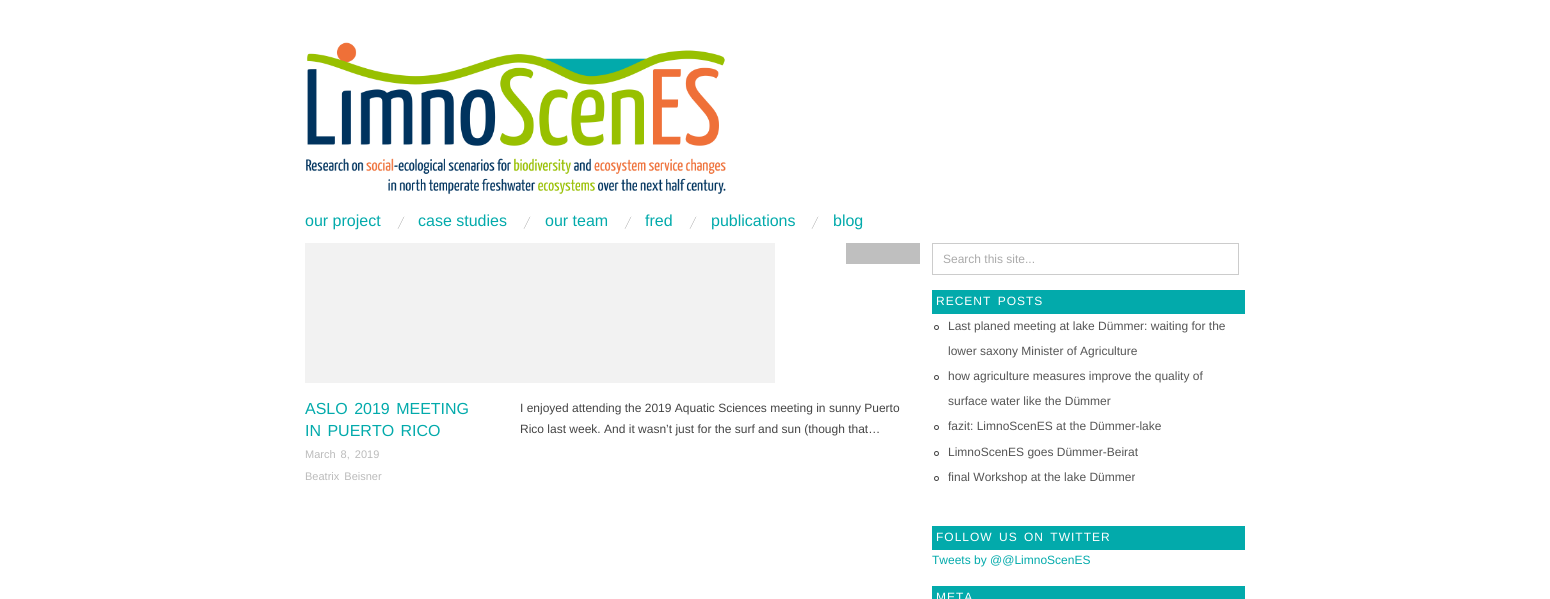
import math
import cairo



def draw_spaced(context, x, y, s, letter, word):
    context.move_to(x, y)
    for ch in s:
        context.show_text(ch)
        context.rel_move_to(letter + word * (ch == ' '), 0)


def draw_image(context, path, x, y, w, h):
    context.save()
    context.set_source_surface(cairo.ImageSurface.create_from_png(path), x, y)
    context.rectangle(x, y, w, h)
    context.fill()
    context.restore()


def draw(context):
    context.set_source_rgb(1, 1, 1)
    context.paint()
    draw_image(context, "images/1.png", 306, 42, 420, 153)
    draw_image(context, "images/2.png", 397, 216, 8, 13)
    draw_image(context, "images/2.png", 523, 216, 8, 13)
    draw_image(context, "images/2.png", 624, 216, 8, 13)
    draw_image(context, "images/2.png", 689, 216, 8, 13)
    draw_image(context, "images/2.png", 811, 216, 8, 13)
    context.set_source_rgb(242 / 255, 242 / 255, 242 / 255)
    context.rectangle(305, 243, 470, 140)
    context.fill()
    context.set_source_rgb(191 / 255, 191 / 255, 191 / 255)
    context.rectangle(846, 243, 74, 21)
    context.fill()
    context.rectangle(932.5, 243.5, 306, 31)
    context.set_source_rgb(204 / 255, 204 / 255, 204 / 255)
    context.set_line_width(1)
    context.stroke()
    context.set_source_rgb(2 / 255, 170 / 255, 171 / 255)
    context.rectangle(932, 290, 313, 24)
    context.fill()
    context.arc(936.5, 327.5, 2, 0, 2 * math.pi)
    context.set_source_rgb(68 / 255, 68 / 255, 68 / 255)
    context.stroke()
    context.arc(936.5, 377.5, 2, 0, 2 * math.pi)
    context.stroke()
    context.arc(936.5, 427.5, 2, 0, 2 * math.pi)
    context.stroke()
    context.arc(936.5, 453.5, 2, 0, 2 * math.pi)
    context.stroke()
    context.arc(936.5, 478.5, 2, 0, 2 * math.pi)
    context.stroke()
    context.set_source_rgb(2 / 255, 170 / 255, 171 / 255)
    context.rectangle(932, 526, 313, 24)
    context.fill()
    context.rectangle(932, 586, 313, 13)
    context.fill()
    context.select_font_face("Liberation Sans")
    context.set_font_size(16)
    context.move_to(305, 226)
    context.show_text("our project")
    context.move_to(418, 226)
    context.show_text("case studies")
    context.move_to(545, 226)
    context.show_text("our team")
    context.move_to(645, 226)
    context.show_text("fred")
    context.move_to(711, 226)
    context.show_text("publications")
    context.move_to(833, 226)
    context.show_text("blog")
    draw_spaced(context, 305, 414, "ASLO 2019 MEETING", 0, 2)
    draw_spaced(context, 305, 436, "IN PUERTO RICO", 0, 2)
    context.set_font_size(11)
    context.set_source_rgb(187 / 255, 187 / 255, 187 / 255)
    draw_spaced(context, 305, 458, "March 8, 2019", 0, 2)
    draw_spaced(context, 305, 480, "Beatrix Beisner", 0, 2)
    context.set_font_size(12)
    context.set_source_rgb(68 / 255, 68 / 255, 68 / 255)
    context.move_to(520, 412)
    context.show_text("I enjoyed attending the 2019 Aquatic Sciences meeting in sunny Puerto")
    context.move_to(520, 433)
    context.show_text("Rico last week. And it wasn’t just for the surf and sun (though that…")
    context.set_source_rgb(170 / 255, 170 / 255, 170 / 255)
    context.move_to(943, 263)
    context.show_text("Search this site...")
    context.set_source_rgb(1, 1, 1)
    draw_spaced(context, 936, 305, "RECENT POSTS", 1, 2)
    context.set_source_rgb(85 / 255, 85 / 255, 85 / 255)
    context.move_to(948, 330)
    context.show_text("Last planed meeting at lake Dümmer: waiting for the")
    context.move_to(948, 355)
    context.show_text("lower saxony Minister of Agriculture")
    context.move_to(948, 380)
    context.show_text("how agriculture measures improve the quality of")
    context.move_to(948, 405)
    context.show_text("surface water like the Dümmer")
    context.move_to(948, 430)
    context.show_text("fazit: LimnoScenES at the Dümmer-lake")
    context.move_to(948, 456)
    context.show_text("LimnoScenES goes Dümmer-Beirat")
    context.move_to(948, 481)
    context.show_text("final Workshop at the lake Dümmer")
    context.set_source_rgb(1, 1, 1)
    draw_spaced(context, 936, 541, "FOLLOW US ON TWITTER", 1, 2)
    context.set_source_rgb(2 / 255, 170 / 255, 171 / 255)
    context.move_to(932, 564)
    context.show_text("Tweets by @@LimnoScenES")
    context.set_source_rgb(1, 1, 1)
    draw_spaced(context, 936, 601, "META", 1, 0)


surface = cairo.ImageSurface(cairo.Format.RGB24, 1550, 599)
context = cairo.Context(surface)
options = cairo.FontOptions()
options.set_hint_metrics(cairo.HintMetrics.OFF)
options.set_hint_style(cairo.HintStyle.NONE)
context.set_font_options(options)
context.set_miter_limit(4)
draw(context)
surface.write_to_png("out.png")
